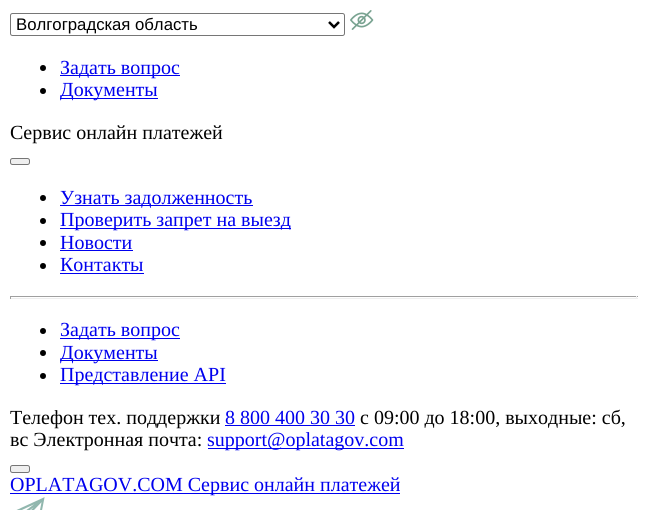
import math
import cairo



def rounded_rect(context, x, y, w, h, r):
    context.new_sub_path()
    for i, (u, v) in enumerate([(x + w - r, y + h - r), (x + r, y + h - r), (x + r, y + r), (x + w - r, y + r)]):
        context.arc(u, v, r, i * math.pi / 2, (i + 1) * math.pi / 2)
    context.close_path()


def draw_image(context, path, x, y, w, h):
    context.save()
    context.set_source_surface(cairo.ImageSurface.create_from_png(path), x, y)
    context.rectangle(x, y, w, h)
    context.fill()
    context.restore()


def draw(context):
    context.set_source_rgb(1, 1, 1)
    context.paint()
    rounded_rect(context, 10.5, 13.5, 334, 22, 2)
    context.set_source_rgb(118 / 255, 118 / 255, 118 / 255)
    context.set_line_width(1)
    context.stroke()
    context.new_path()
    context.move_to(329, 22)
    context.line_to(334, 27)
    context.line_to(339, 22)
    context.set_source_rgb(0, 0, 0)
    context.set_line_width(2.5)
    context.stroke()
    draw_image(context, "images/1.png", 350, 10, 24, 20)
    context.arc(43, 68, 3, 0, 2 * math.pi)
    context.fill()
    context.set_source_rgb(0, 0, 238 / 255)
    context.rectangle(60, 75, 120, 1)
    context.fill()
    context.set_source_rgb(0, 0, 0)
    context.arc(43, 91, 3, 0, 2 * math.pi)
    context.fill()
    context.set_source_rgb(0, 0, 238 / 255)
    context.rectangle(60, 98, 98, 1)
    context.fill()
    context.set_source_rgb(239 / 255, 239 / 255, 239 / 255)
    rounded_rect(context, 10.5, 158.5, 19, 6, 2)
    context.fill_preserve()
    context.set_source_rgb(118 / 255, 118 / 255, 118 / 255)
    context.set_line_width(1)
    context.stroke()
    context.set_source_rgb(0, 0, 0)
    context.arc(43, 198, 3, 0, 2 * math.pi)
    context.fill()
    context.set_source_rgb(0, 0, 238 / 255)
    context.rectangle(60, 205, 193, 1)
    context.fill()
    context.set_source_rgb(0, 0, 0)
    context.arc(43, 221, 3, 0, 2 * math.pi)
    context.fill()
    context.set_source_rgb(0, 0, 238 / 255)
    context.rectangle(60, 228, 231, 1)
    context.fill()
    context.set_source_rgb(0, 0, 0)
    context.arc(43, 243, 3, 0, 2 * math.pi)
    context.fill()
    context.set_source_rgb(0, 0, 238 / 255)
    context.rectangle(60, 250, 73, 1)
    context.fill()
    context.set_source_rgb(0, 0, 0)
    context.arc(43, 266, 3, 0, 2 * math.pi)
    context.fill()
    context.set_source_rgb(0, 0, 238 / 255)
    context.rectangle(60, 273, 84, 1)
    context.fill()
    context.set_source_rgb(159 / 255, 159 / 255, 159 / 255)
    context.rectangle(10, 296, 628, 1)
    context.fill()
    context.set_source_rgb(238 / 255, 238 / 255, 238 / 255)
    context.rectangle(636, 296, 1, 3)
    context.fill()
    context.rectangle(10, 298, 628, 1)
    context.fill()
    context.set_source_rgb(159 / 255, 159 / 255, 159 / 255)
    context.rectangle(10, 296, 1, 3)
    context.fill()
    context.set_source_rgb(0, 0, 0)
    context.arc(43, 331, 3, 0, 2 * math.pi)
    context.fill()
    context.set_source_rgb(0, 0, 238 / 255)
    context.rectangle(60, 338, 120, 1)
    context.fill()
    context.set_source_rgb(0, 0, 0)
    context.arc(43, 353, 3, 0, 2 * math.pi)
    context.fill()
    context.set_source_rgb(0, 0, 238 / 255)
    context.rectangle(60, 360, 98, 1)
    context.fill()
    context.set_source_rgb(0, 0, 0)
    context.arc(43, 376, 3, 0, 2 * math.pi)
    context.fill()
    context.set_source_rgb(0, 0, 238 / 255)
    context.rectangle(60, 383, 166, 1)
    context.fill()
    context.rectangle(225, 425, 130, 1)
    context.fill()
    context.rectangle(208, 448, 196, 1)
    context.fill()
    context.set_source_rgb(239 / 255, 239 / 255, 239 / 255)
    rounded_rect(context, 10.5, 465.5, 19, 7, 2)
    context.fill_preserve()
    context.set_source_rgb(118 / 255, 118 / 255, 118 / 255)
    context.stroke()
    context.set_source_rgb(0, 0, 238 / 255)
    context.rectangle(10, 493, 390, 1)
    context.fill()
    draw_image(context, "images/2.png", 16, 497, 29, 13)
    context.select_font_face("Liberation Sans")
    context.set_font_size(16.75)
    context.set_source_rgb(0, 0, 0)
    context.move_to(16, 30)
    context.show_text("Волгоградская область")
    context.select_font_face("Liberation Serif")
    context.set_font_size(20)
    context.set_source_rgb(0, 0, 238 / 255)
    context.move_to(60, 74)
    context.show_text("Задать вопрос")
    context.move_to(60, 96)
    context.show_text("Документы")
    context.set_source_rgb(0, 0, 0)
    context.move_to(10, 139)
    context.show_text("Сервис онлайн платежей")
    context.set_source_rgb(0, 0, 238 / 255)
    context.move_to(60, 204)
    context.show_text("Узнать задолженность")
    context.move_to(60, 226)
    context.show_text("Проверить запрет на выезд")
    context.move_to(60, 249)
    context.show_text("Новости")
    context.move_to(60, 271)
    context.show_text("Контакты")
    context.move_to(60, 336)
    context.show_text("Задать вопрос")
    context.move_to(60, 359)
    context.show_text("Документы")
    context.move_to(60, 381)
    context.show_text("Представление API")
    context.set_source_rgb(0, 0, 0)
    context.move_to(10, 424)
    context.show_text("Телефон тех. поддержки")
    context.set_source_rgb(0, 0, 238 / 255)
    context.move_to(225, 424)
    context.show_text("8 800 400 30 30")
    context.set_source_rgb(0, 0, 0)
    context.move_to(360, 424)
    context.show_text("с 09:00 до 18:00, выходные: сб,")
    context.move_to(10, 446)
    context.show_text("вс Электронная почта:")
    context.set_source_rgb(0, 0, 238 / 255)
    context.move_to(207, 446)
    context.show_text("support@oplatagov.com")
    context.move_to(10, 491)
    context.show_text("OPLATAGOV.COM Сервис онлайн платежей")


surface = cairo.ImageSurface(cairo.Format.RGB24, 647, 510)
context = cairo.Context(surface)
options = cairo.FontOptions()
options.set_hint_metrics(cairo.HintMetrics.OFF)
options.set_hint_style(cairo.HintStyle.NONE)
context.set_font_options(options)
context.set_miter_limit(4)
draw(context)
surface.write_to_png("out.png")
